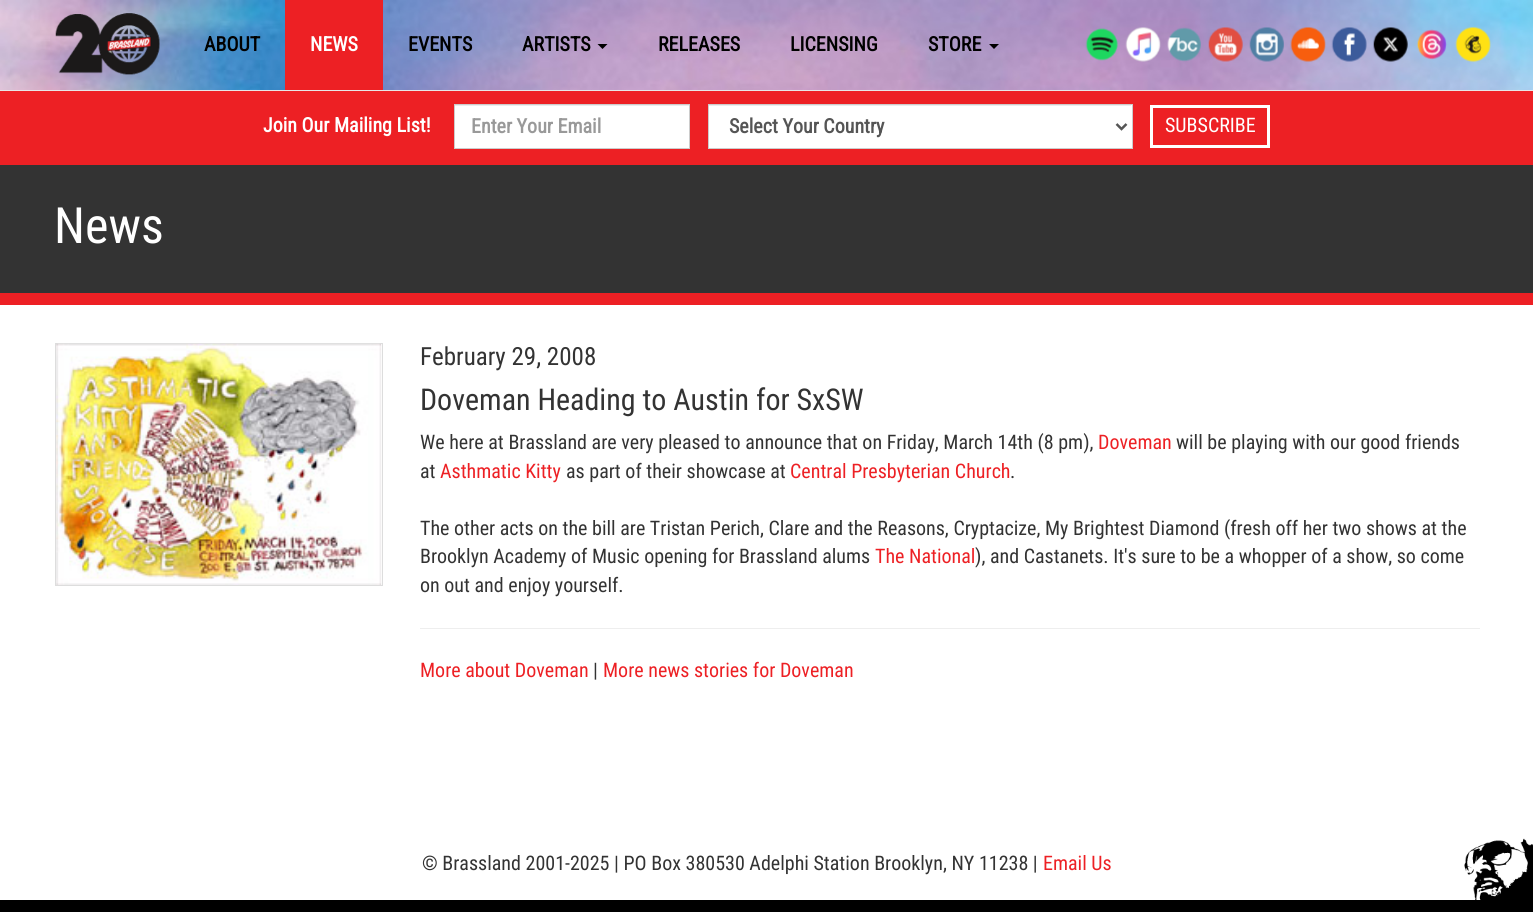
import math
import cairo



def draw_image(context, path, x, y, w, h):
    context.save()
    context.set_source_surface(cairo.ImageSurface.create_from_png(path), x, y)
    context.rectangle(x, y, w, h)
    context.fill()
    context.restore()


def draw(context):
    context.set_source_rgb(1, 1, 1)
    context.paint()
    draw_image(context, "images/1.png", 0, 0, 1533, 90)
    context.set_source_rgb(231 / 255, 231 / 255, 231 / 255)
    context.rectangle(0, 90, 1533, 1)
    context.fill()
    draw_image(context, "images/2.png", 55, 13, 105, 62)
    context.set_source_rgb(237 / 255, 32 / 255, 36 / 255)
    context.rectangle(285, 0, 98, 90)
    context.fill()
    context.set_source_rgb(0, 0, 0)
    context.new_path()
    context.move_to(597.5, 44)
    context.line_to(607.5, 44)
    context.line_to(602.5, 49)
    context.close_path()
    context.fill()
    context.new_path()
    context.move_to(989, 44)
    context.line_to(999, 44)
    context.line_to(994, 49)
    context.close_path()
    context.fill()
    draw_image(context, "images/3.png", 1085, 28, 33, 33)
    draw_image(context, "images/4.png", 1125, 27, 36, 35)
    draw_image(context, "images/5.png", 1167, 27, 34, 35)
    draw_image(context, "images/6.png", 1208, 27, 35, 35)
    draw_image(context, "images/7.png", 1249, 27, 35, 35)
    draw_image(context, "images/8.png", 1290, 27, 36, 35)
    draw_image(context, "images/9.png", 1331, 27, 36, 35)
    draw_image(context, "images/10.png", 1373, 27, 35, 35)
    draw_image(context, "images/11.png", 1416, 29, 31, 31)
    draw_image(context, "images/12.png", 1455, 27, 36, 35)
    context.set_source_rgb(237 / 255, 32 / 255, 36 / 255)
    context.rectangle(0, 91, 1533, 74)
    context.fill()
    context.set_source_rgb(1, 1, 1)
    context.rectangle(455, 106, 234, 42)
    context.fill()
    context.set_source_rgb(236 / 255, 236 / 255, 236 / 255)
    context.rectangle(455, 105, 234, 1)
    context.fill()
    context.rectangle(454.5, 104.5, 235, 44)
    context.set_source_rgb(204 / 255, 204 / 255, 204 / 255)
    context.set_line_width(1)
    context.stroke()
    context.set_source_rgb(1, 1, 1)
    context.rectangle(709, 105, 423, 43)
    context.fill()
    context.set_source_rgb(236 / 255, 236 / 255, 236 / 255)
    context.rectangle(709, 105, 422, 1)
    context.fill()
    context.rectangle(708.5, 104.5, 424, 44)
    context.set_source_rgb(204 / 255, 204 / 255, 204 / 255)
    context.stroke()
    context.new_path()
    context.move_to(1116.5, 124)
    context.line_to(1121.5, 129)
    context.line_to(1126.5, 124)
    context.set_source_rgb(85 / 255, 85 / 255, 85 / 255)
    context.set_line_width(2.5)
    context.stroke()
    context.rectangle(1151.5, 106.5, 117, 40)
    context.set_source_rgb(1, 1, 1)
    context.set_line_width(3)
    context.stroke()
    context.set_source_rgb(51 / 255, 51 / 255, 51 / 255)
    context.rectangle(0, 165, 1533, 128)
    context.fill()
    context.set_source_rgb(237 / 255, 32 / 255, 36 / 255)
    context.rectangle(0, 293, 1533, 12)
    context.fill()
    context.rectangle(55.5, 343.5, 327, 242)
    context.set_source_rgb(221 / 255, 221 / 255, 221 / 255)
    context.set_line_width(1)
    context.stroke()
    draw_image(context, "images/13.png", 56, 343, 326, 242)
    context.set_source_rgb(238 / 255, 238 / 255, 238 / 255)
    context.rectangle(420, 628, 1060, 1)
    context.fill()
    draw_image(context, "images/14.png", 1464, 838, 69, 62)
    context.set_source_rgb(0, 0, 0)
    context.rectangle(0, 900, 1533, 12)
    context.fill()
    context.select_font_face("Roboto Condensed", cairo.FontSlant.NORMAL, cairo.FontWeight.BOLD)
    context.set_font_size(20)
    context.move_to(204, 51)
    context.show_text("ABOUT")
    context.set_source_rgb(1, 1, 1)
    context.move_to(310, 51)
    context.show_text("NEWS")
    context.set_source_rgb(0, 0, 0)
    context.move_to(408, 51)
    context.show_text("EVENTS")
    context.move_to(522, 51)
    context.show_text("ARTISTS")
    context.move_to(658, 51)
    context.show_text("RELEASES")
    context.move_to(790, 51)
    context.show_text("LICENSING")
    context.move_to(928, 51)
    context.show_text("STORE")
    context.set_source_rgb(1, 1, 1)
    context.move_to(263, 132)
    context.show_text("Join Our Mailing List!")
    context.set_source_rgb(153 / 255, 153 / 255, 153 / 255)
    context.move_to(471, 133)
    context.show_text("Enter Your Email")
    context.set_source_rgb(85 / 255, 85 / 255, 85 / 255)
    context.move_to(729, 133)
    context.show_text("Select Your Country")
    context.select_font_face("Roboto Condensed")
    context.set_source_rgb(1, 1, 1)
    context.move_to(1165, 132)
    context.show_text("SUBSCRIBE")
    context.set_font_size(50)
    context.move_to(54, 243)
    context.show_text("News")
    context.set_font_size(25)
    context.set_source_rgb(51 / 255, 51 / 255, 51 / 255)
    context.move_to(420, 365)
    context.show_text("February 29, 2008")
    context.set_font_size(30)
    context.move_to(420, 410)
    context.show_text("Doveman Heading to Austin for SxSW")
    context.set_font_size(20)
    context.move_to(420, 449)
    context.show_text("We here at Brassland are very pleased to announce that on Friday, March 14th (8 pm),")
    context.set_source_rgb(237 / 255, 32 / 255, 36 / 255)
    context.move_to(1098, 449)
    context.show_text("Doveman")
    context.set_source_rgb(51 / 255, 51 / 255, 51 / 255)
    context.move_to(1176, 449)
    context.show_text("will be playing with our good friends")
    context.move_to(420, 478)
    context.show_text("at")
    context.set_source_rgb(237 / 255, 32 / 255, 36 / 255)
    context.move_to(440, 478)
    context.show_text("Asthmatic Kitty")
    context.set_source_rgb(51 / 255, 51 / 255, 51 / 255)
    context.move_to(566, 478)
    context.show_text("as part of their showcase at")
    context.set_source_rgb(237 / 255, 32 / 255, 36 / 255)
    context.move_to(790, 478)
    context.show_text("Central Presbyterian Church")
    context.set_source_rgb(51 / 255, 51 / 255, 51 / 255)
    context.move_to(1010, 478)
    context.show_text(".")
    context.move_to(420, 535)
    context.show_text("The other acts on the bill are Tristan Perich, Clare and the Reasons, Cryptacize, My Brightest Diamond (fresh off her two shows at the")
    context.move_to(420, 563)
    context.show_text("Brooklyn Academy of Music opening for Brassland alums")
    context.set_source_rgb(237 / 255, 32 / 255, 36 / 255)
    context.move_to(875, 563)
    context.show_text("The National")
    context.set_source_rgb(51 / 255, 51 / 255, 51 / 255)
    context.move_to(975, 563)
    context.show_text("), and Castanets. It's sure to be a whopper of a show, so come")
    context.move_to(420, 592)
    context.show_text("on out and enjoy yourself.")
    context.set_source_rgb(237 / 255, 32 / 255, 36 / 255)
    context.move_to(420, 677)
    context.show_text("More about Doveman")
    context.set_source_rgb(51 / 255, 51 / 255, 51 / 255)
    context.move_to(593, 677)
    context.show_text("|")
    context.set_source_rgb(237 / 255, 32 / 255, 36 / 255)
    context.move_to(603, 677)
    context.show_text("More news stories for Doveman")
    context.set_source_rgb(51 / 255, 51 / 255, 51 / 255)
    context.move_to(422, 870)
    context.show_text("© Brassland 2001-2025 | PO Box 380530 Adelphi Station Brooklyn, NY 11238 |")
    context.set_source_rgb(237 / 255, 32 / 255, 36 / 255)
    context.move_to(1043, 870)
    context.show_text("Email Us")


surface = cairo.ImageSurface(cairo.Format.RGB24, 1533, 912)
context = cairo.Context(surface)
options = cairo.FontOptions()
options.set_hint_metrics(cairo.HintMetrics.OFF)
options.set_hint_style(cairo.HintStyle.NONE)
context.set_font_options(options)
context.set_miter_limit(4)
draw(context)
surface.write_to_png("out.png")
